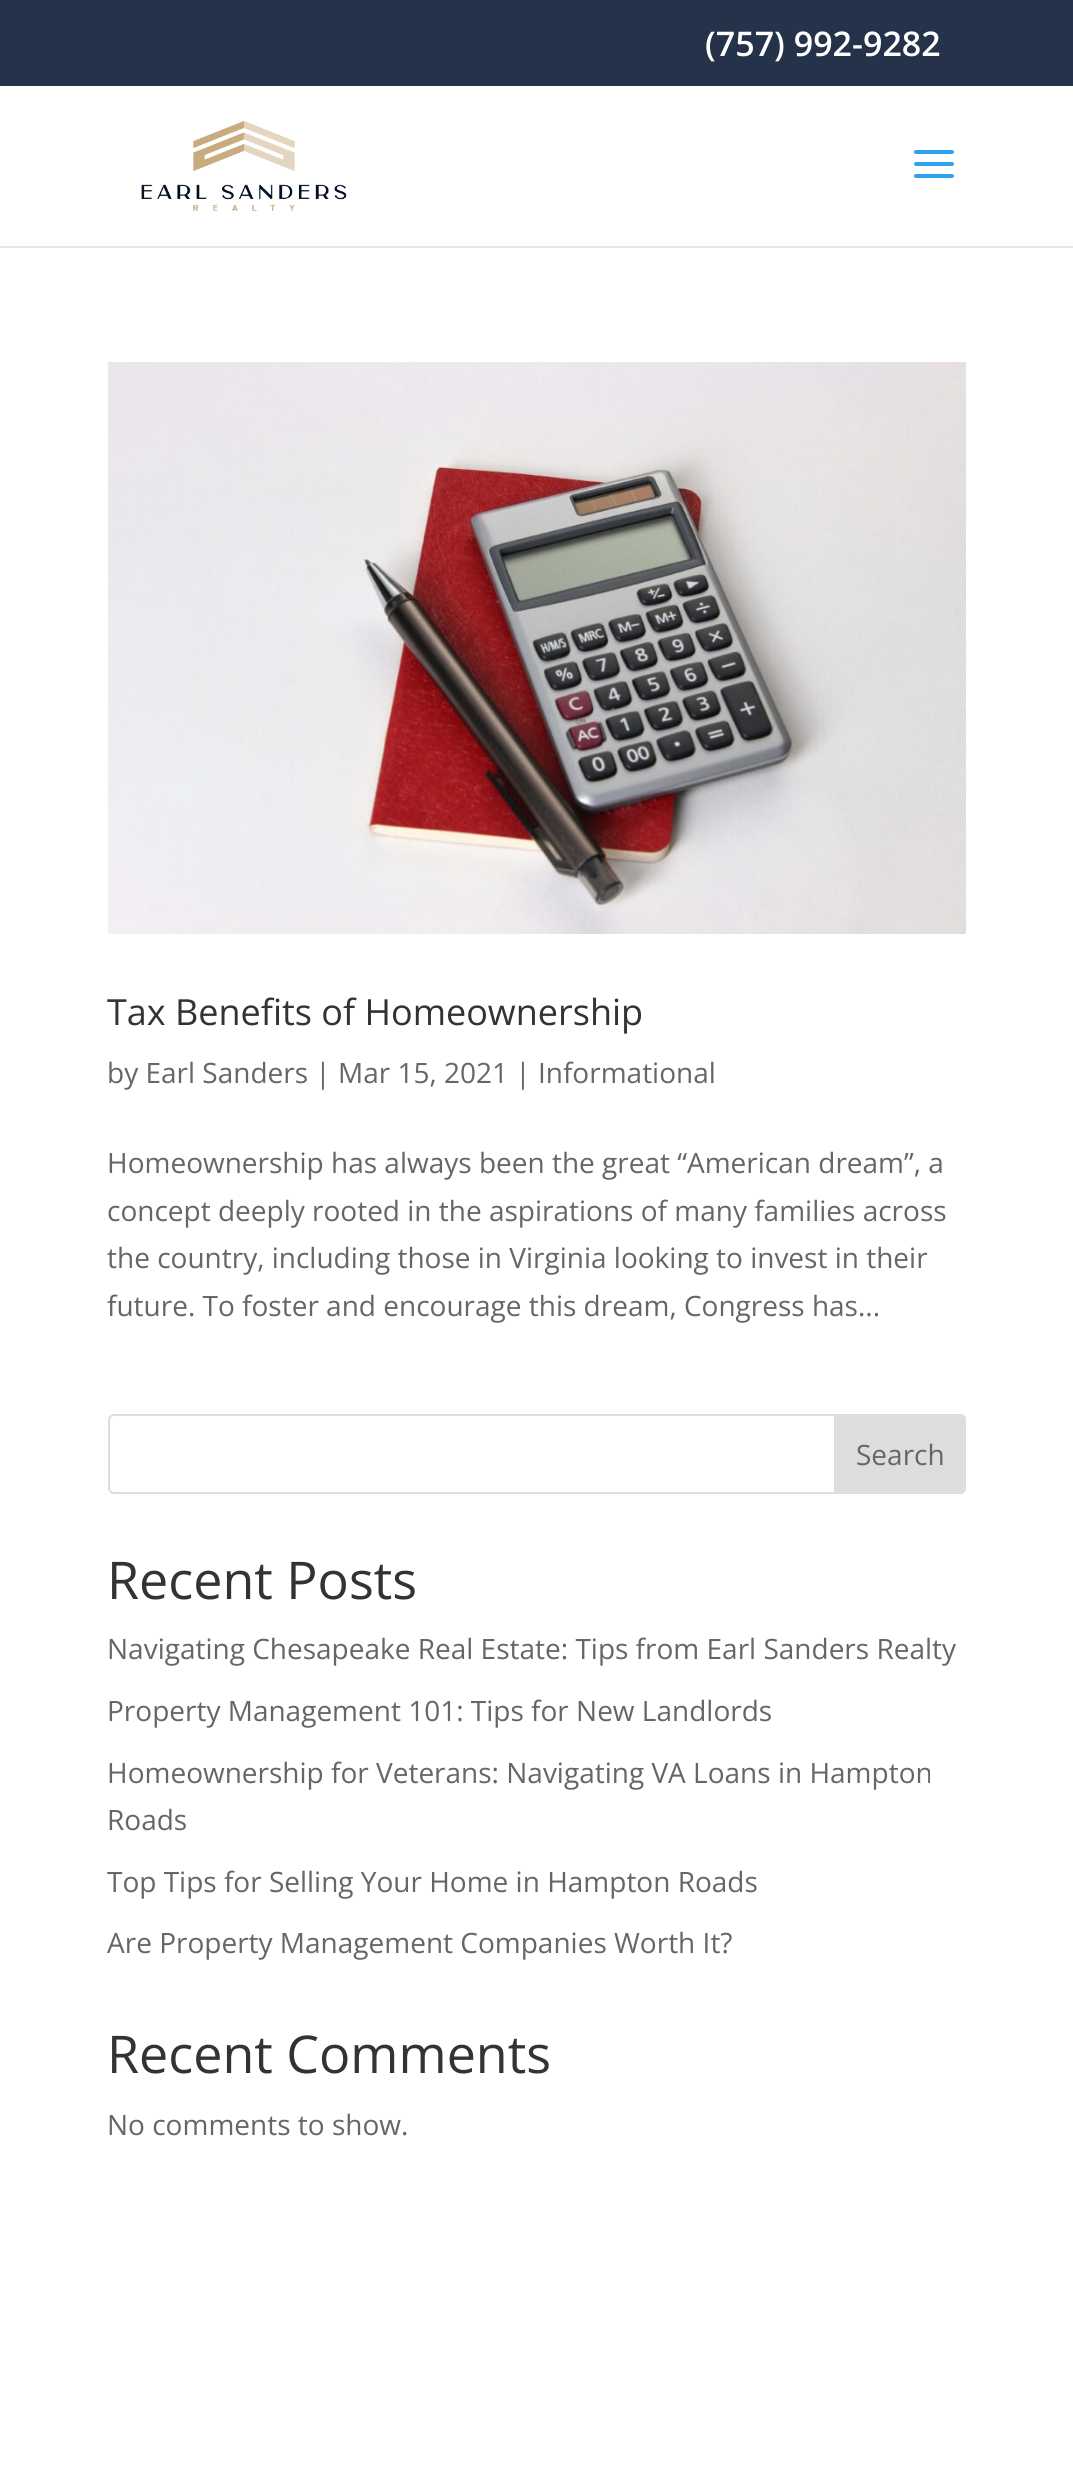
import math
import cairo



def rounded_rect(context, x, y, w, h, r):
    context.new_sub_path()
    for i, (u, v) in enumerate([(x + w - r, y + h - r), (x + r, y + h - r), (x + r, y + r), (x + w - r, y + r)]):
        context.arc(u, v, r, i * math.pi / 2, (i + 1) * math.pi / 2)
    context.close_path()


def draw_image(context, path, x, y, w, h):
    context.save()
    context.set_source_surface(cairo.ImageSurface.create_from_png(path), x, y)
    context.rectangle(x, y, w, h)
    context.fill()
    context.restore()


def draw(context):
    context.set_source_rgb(1, 1, 1)
    context.paint()
    context.set_source_rgb(36 / 255, 50 / 255, 74 / 255)
    context.rectangle(0, 0, 1073, 86)
    context.fill()
    context.set_source_rgb(230 / 255, 230 / 255, 230 / 255)
    context.rectangle(0, 246, 1073, 2)
    context.fill()
    draw_image(context, "images/1.png", 141, 121, 206, 90)
    draw_image(context, "images/2.png", 914, 150, 40, 28)
    draw_image(context, "images/3.png", 108, 362, 858, 572)
    rounded_rect(context, 109, 1415, 856, 78, 5)
    context.set_source_rgb(221 / 255, 221 / 255, 221 / 255)
    context.stroke()
    context.new_path()
    context.move_to(835, 1415)
    context.line_to(960, 1415)
    context.curve_to(963, 1415, 965, 1417, 965, 1420)
    context.line_to(965, 1488)
    context.curve_to(965, 1491, 963, 1493, 960, 1493)
    context.line_to(835, 1493)
    context.close_path()
    context.fill_preserve()
    context.stroke()
    context.select_font_face("Open Sans SemiBold")
    context.set_font_size(34)
    context.set_source_rgb(1, 1, 1)
    context.move_to(705, 56)
    context.show_text("(757) 992-9282")
    context.select_font_face("Open Sans")
    context.set_font_size(36)
    context.set_source_rgb(51 / 255, 51 / 255, 51 / 255)
    context.move_to(107, 1025)
    context.show_text("Tax Benefits of Homeownership")
    context.set_font_size(28)
    context.set_source_rgb(102 / 255, 102 / 255, 102 / 255)
    context.move_to(107, 1083)
    context.show_text("by Earl Sanders | Mar 15, 2021 | Informational")
    context.move_to(107, 1173)
    context.show_text("Homeownership has always been the great “American dream”, a")
    context.move_to(107, 1221)
    context.show_text("concept deeply rooted in the aspirations of many families across")
    context.move_to(107, 1268)
    context.show_text("the country, including those in Virginia looking to invest in their")
    context.move_to(107, 1316)
    context.show_text("future. To foster and encourage this dream, Congress has...")
    context.move_to(856, 1465)
    context.show_text("Search")
    context.set_font_size(52)
    context.set_source_rgb(51 / 255, 51 / 255, 51 / 255)
    context.move_to(107, 1599)
    context.show_text("Recent Posts")
    context.set_font_size(28)
    context.set_source_rgb(102 / 255, 102 / 255, 102 / 255)
    context.move_to(107, 1659)
    context.show_text("Navigating Chesapeake Real Estate: Tips from Earl Sanders Realty")
    context.move_to(107, 1721)
    context.show_text("Property Management 101: Tips for New Landlords")
    context.move_to(107, 1783)
    context.show_text("Homeownership for Veterans: Navigating VA Loans in Hampton")
    context.move_to(107, 1830)
    context.show_text("Roads")
    context.move_to(107, 1892)
    context.show_text("Top Tips for Selling Your Home in Hampton Roads")
    context.move_to(107, 1953)
    context.show_text("Are Property Management Companies Worth It?")
    context.set_font_size(52)
    context.set_source_rgb(51 / 255, 51 / 255, 51 / 255)
    context.move_to(107, 2073)
    context.show_text("Recent Comments")
    context.set_font_size(28)
    context.set_source_rgb(102 / 255, 102 / 255, 102 / 255)
    context.move_to(107, 2135)
    context.show_text("No comments to show.")


surface = cairo.ImageSurface(cairo.Format.RGB24, 1073, 2479)
context = cairo.Context(surface)
options = cairo.FontOptions()
options.set_hint_metrics(cairo.HintMetrics.OFF)
options.set_hint_style(cairo.HintStyle.NONE)
context.set_font_options(options)
context.set_miter_limit(4)
draw(context)
surface.write_to_png("out.png")
